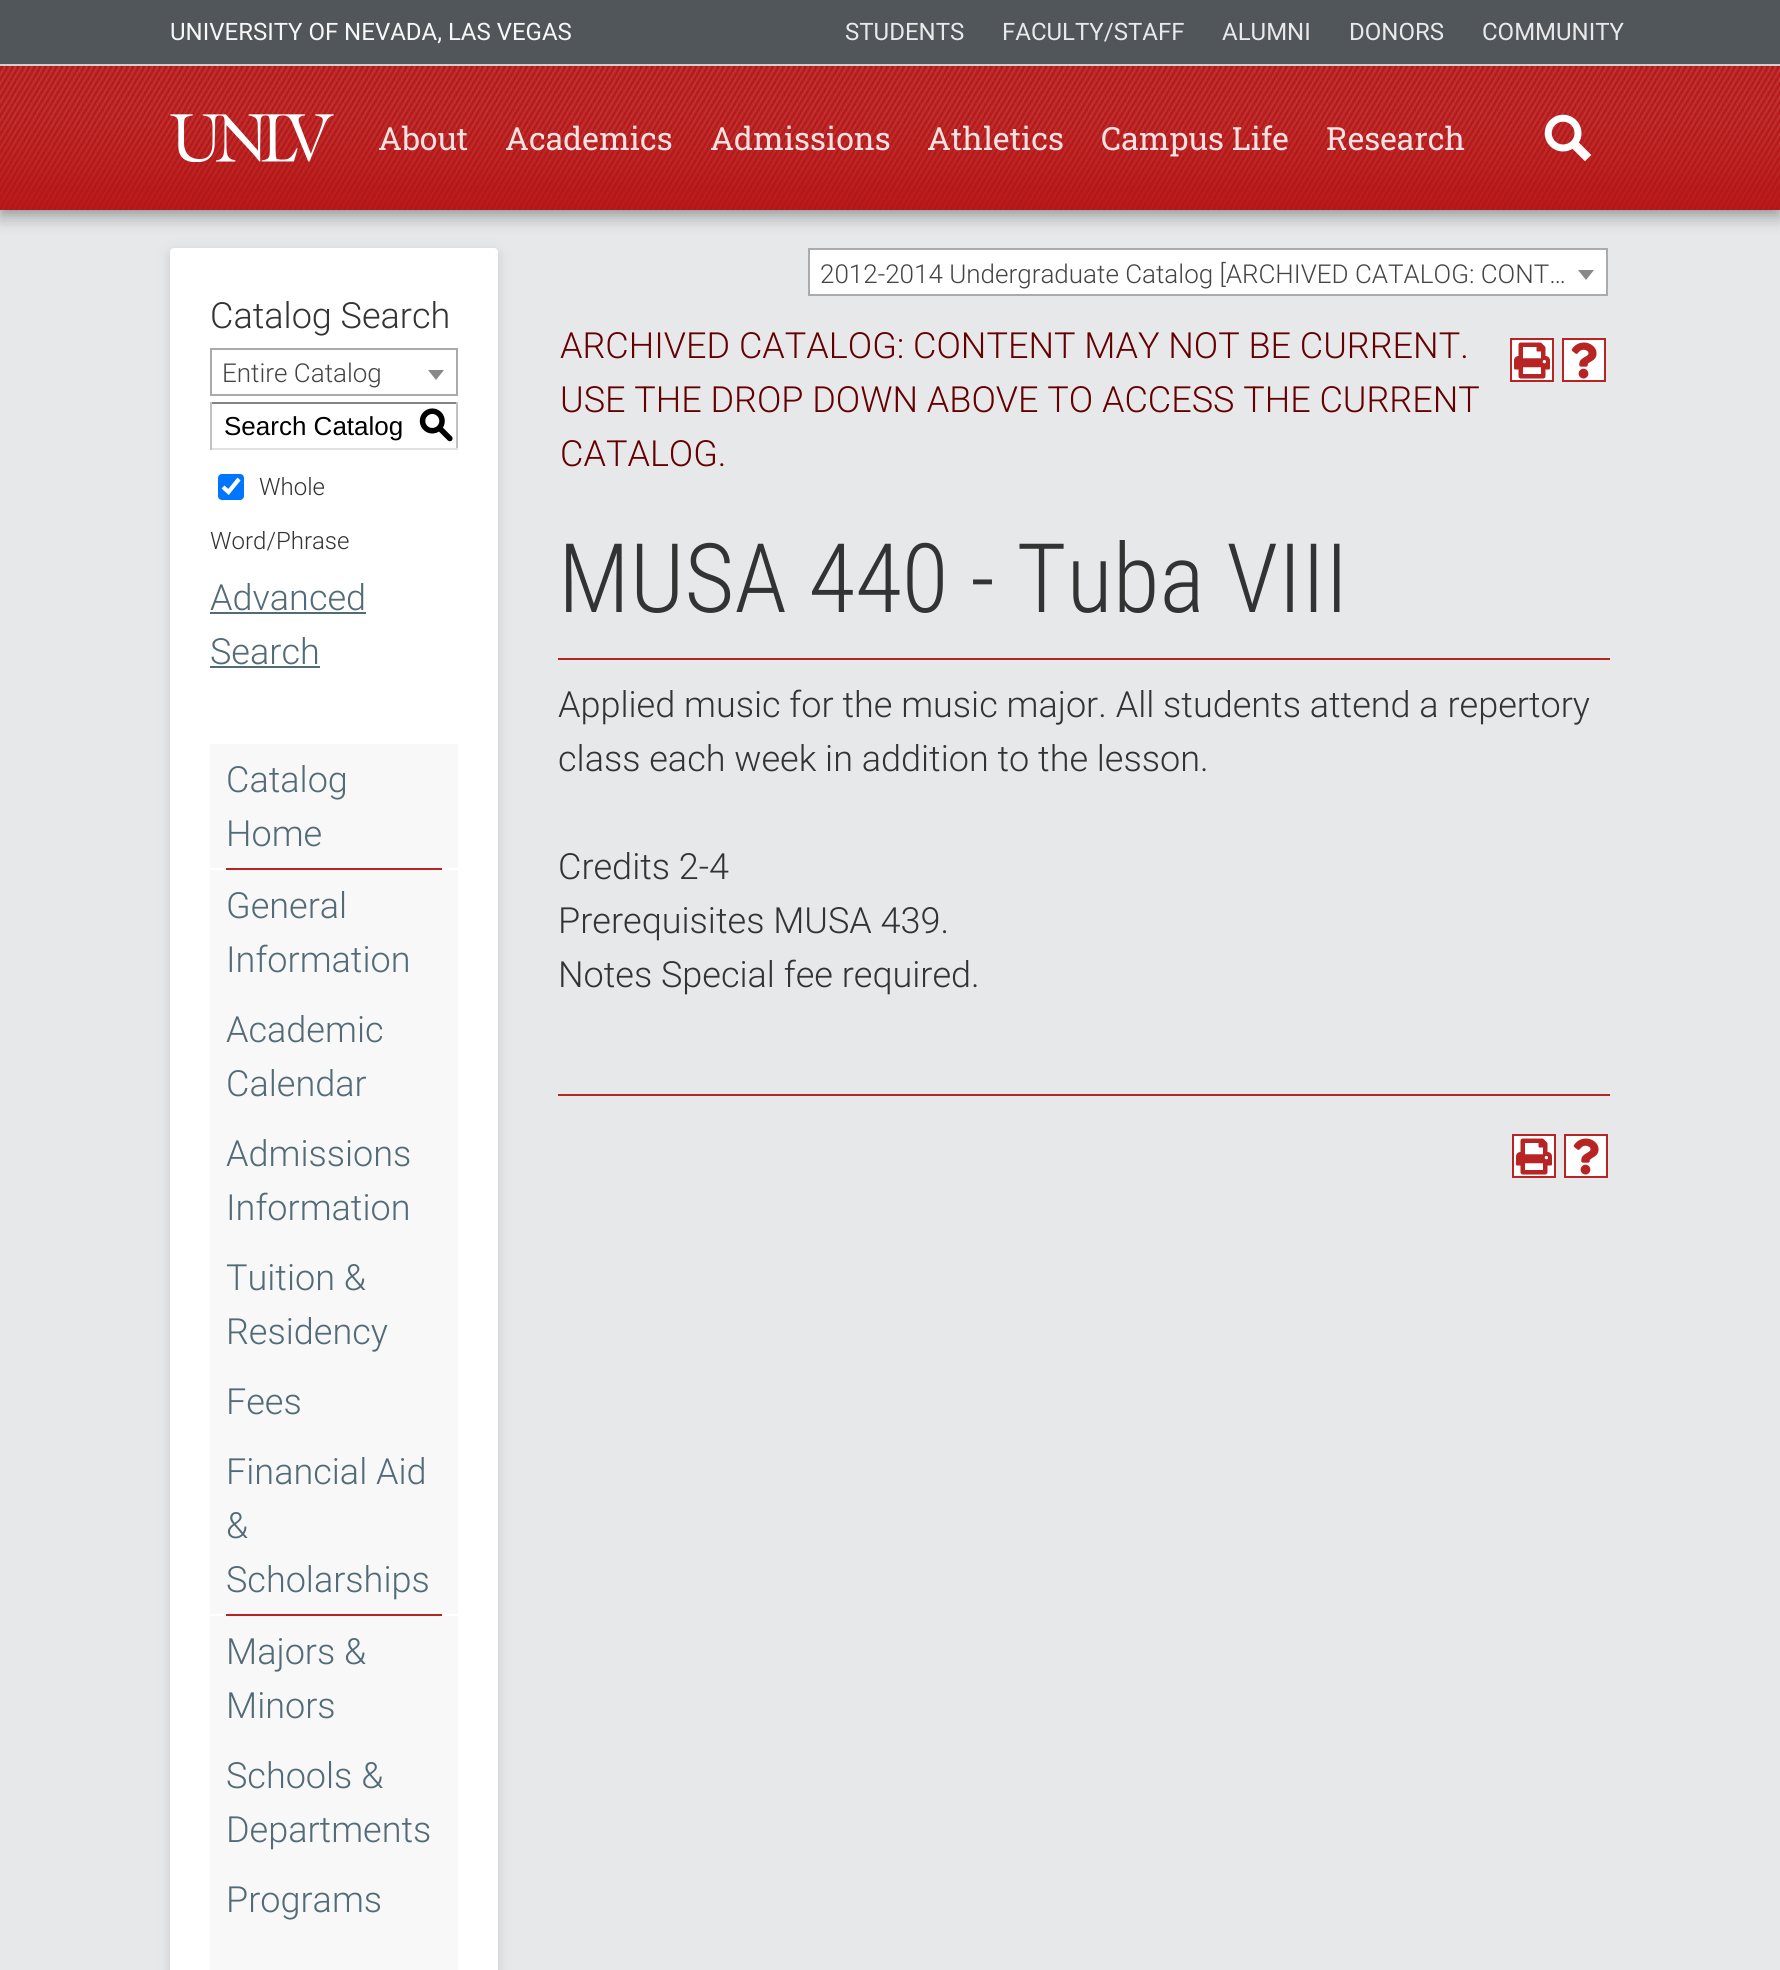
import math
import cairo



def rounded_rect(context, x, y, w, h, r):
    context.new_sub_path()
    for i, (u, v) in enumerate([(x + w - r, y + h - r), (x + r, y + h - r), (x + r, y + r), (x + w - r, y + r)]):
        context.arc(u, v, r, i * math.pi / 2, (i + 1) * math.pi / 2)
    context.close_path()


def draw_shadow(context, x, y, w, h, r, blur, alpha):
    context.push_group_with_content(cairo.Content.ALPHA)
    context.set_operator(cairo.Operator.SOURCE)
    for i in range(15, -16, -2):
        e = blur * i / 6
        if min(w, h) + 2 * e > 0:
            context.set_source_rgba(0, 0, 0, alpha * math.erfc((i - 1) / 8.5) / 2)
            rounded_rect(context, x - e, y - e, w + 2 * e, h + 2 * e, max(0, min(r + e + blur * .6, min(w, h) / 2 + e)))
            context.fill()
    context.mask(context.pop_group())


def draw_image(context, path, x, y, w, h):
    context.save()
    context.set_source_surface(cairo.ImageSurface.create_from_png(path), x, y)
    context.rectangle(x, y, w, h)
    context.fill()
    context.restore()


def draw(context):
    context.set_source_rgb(230 / 255, 232 / 255, 234 / 255)
    context.paint()
    context.set_source_rgb(0, 0, 0)
    draw_shadow(context, 0, 8, 1780, 210, 0, 8, 0.28)
    draw_shadow(context, 0, 0, 1780, 210, 0, 4, 0.14)
    context.set_source_rgb(81 / 255, 86 / 255, 90 / 255)
    context.rectangle(0, 0, 1780, 64)
    context.fill()
    context.set_source_rgb(207 / 255, 208 / 255, 208 / 255)
    context.rectangle(0, 64, 1780, 2)
    context.fill()
    context.set_source_rgb(181 / 255, 20 / 255, 20 / 255)
    context.rectangle(0, 66, 1780, 144)
    context.fill()
    draw_image(context, "images/1.png", 0, 66, 1780, 144)
    draw_image(context, "images/2.png", 170, 114, 164, 48)
    draw_image(context, "images/3.png", 1544, 114, 48, 48)
    context.set_source_rgb(1, 1, 1)
    context.rectangle(809, 249, 798, 46)
    context.fill_preserve()
    context.set_source_rgb(170 / 255, 170 / 255, 170 / 255)
    context.stroke()
    context.set_source_rgb(136 / 255, 136 / 255, 136 / 255)
    context.new_path()
    context.move_to(1578, 270)
    context.line_to(1594, 270)
    context.line_to(1586, 280)
    context.close_path()
    context.fill()
    context.set_source_rgb(0, 0, 0)
    draw_shadow(context, 170, 252, 328, 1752, 4, 10, 0.06)
    draw_shadow(context, 170, 252, 328, 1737, 4, 5, 0.08)
    context.set_source_rgb(1, 1, 1)
    rounded_rect(context, 170, 248, 328, 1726, 4)
    context.fill()
    context.rectangle(211, 349, 246, 46)
    context.set_source_rgb(170 / 255, 170 / 255, 170 / 255)
    context.stroke()
    context.set_source_rgb(136 / 255, 136 / 255, 136 / 255)
    context.new_path()
    context.move_to(428, 370)
    context.line_to(444, 370)
    context.line_to(436, 380)
    context.close_path()
    context.fill()
    context.set_source_rgb(132 / 255, 132 / 255, 132 / 255)
    context.rectangle(210, 402, 248, 2)
    context.fill()
    context.set_source_rgb(193 / 255, 193 / 255, 193 / 255)
    context.rectangle(456, 402, 2, 48)
    context.fill()
    context.set_source_rgb(225 / 255, 225 / 255, 225 / 255)
    context.rectangle(210, 448, 248, 2)
    context.fill()
    context.set_source_rgb(193 / 255, 193 / 255, 193 / 255)
    context.rectangle(210, 402, 2, 48)
    context.fill()
    context.set_source_rgb(0, 117 / 255, 1)
    rounded_rect(context, 218, 474, 26, 26, 4)
    context.fill()
    context.new_path()
    context.move_to(223, 487)
    context.line_to(228.5, 492)
    context.line_to(239, 479)
    context.set_source_rgb(1, 1, 1)
    context.set_line_width(4.2)
    context.stroke()
    context.set_source_rgb(82 / 255, 107 / 255, 119 / 255)
    context.rectangle(210, 612, 156, 2)
    context.fill()
    context.rectangle(210, 666, 110, 2)
    context.fill()
    context.set_source_rgb(248 / 255, 248 / 255, 248 / 255)
    context.rectangle(210, 744, 248, 124)
    context.fill()
    context.set_source_rgb(184 / 255, 35 / 255, 35 / 255)
    context.rectangle(226, 868, 216, 2)
    context.fill()
    context.set_source_rgb(248 / 255, 248 / 255, 248 / 255)
    context.rectangle(210, 870, 248, 744)
    context.fill()
    context.set_source_rgb(184 / 255, 35 / 255, 35 / 255)
    context.rectangle(226, 1614, 216, 2)
    context.fill()
    context.set_source_rgb(248 / 255, 248 / 255, 248 / 255)
    context.rectangle(210, 1616, 248, 354)
    context.fill()
    context.set_source_rgb(1, 1, 1)
    context.rectangle(1511, 339, 42, 42)
    context.fill_preserve()
    context.set_source_rgb(184 / 255, 35 / 255, 35 / 255)
    context.set_line_width(2)
    context.stroke()
    draw_image(context, "images/4.png", 1514, 342, 36, 37)
    context.set_source_rgb(1, 1, 1)
    context.rectangle(1563, 339, 42, 42)
    context.fill_preserve()
    context.set_source_rgb(184 / 255, 35 / 255, 35 / 255)
    context.stroke()
    draw_image(context, "images/5.png", 1571, 342, 26, 37)
    context.rectangle(558, 658, 1052, 2)
    context.fill()
    context.rectangle(558, 1094, 1052, 2)
    context.fill()
    context.set_source_rgb(1, 1, 1)
    context.rectangle(1513, 1135, 42, 42)
    context.fill_preserve()
    context.set_source_rgb(184 / 255, 35 / 255, 35 / 255)
    context.stroke()
    draw_image(context, "images/4.png", 1516, 1138, 36, 37)
    context.set_source_rgb(1, 1, 1)
    context.rectangle(1565, 1135, 42, 42)
    context.fill_preserve()
    context.set_source_rgb(184 / 255, 35 / 255, 35 / 255)
    context.stroke()
    draw_image(context, "images/5.png", 1573, 1138, 26, 37)
    context.select_font_face("Roboto")
    context.set_font_size(24)
    context.set_source_rgb(246 / 255, 247 / 255, 247 / 255)
    context.move_to(170, 40)
    context.show_text("UNIVERSITY OF NEVADA, LAS VEGAS")
    context.set_source_rgb(232 / 255, 233 / 255, 234 / 255)
    context.move_to(845, 40)
    context.show_text("STUDENTS")
    context.move_to(1002, 40)
    context.show_text("FACULTY/STAFF")
    context.move_to(1222, 40)
    context.show_text("ALUMNI")
    context.move_to(1349, 40)
    context.show_text("DONORS")
    context.move_to(1482, 40)
    context.show_text("COMMUNITY")
    context.select_font_face("Roboto Slab")
    context.set_font_size(32)
    context.set_source_rgb(246 / 255, 226 / 255, 226 / 255)
    context.move_to(378, 150)
    context.show_text("About")
    context.move_to(505, 150)
    context.show_text("Academics")
    context.move_to(710, 150)
    context.show_text("Admissions")
    context.move_to(927, 150)
    context.show_text("Athletics")
    context.move_to(1101, 150)
    context.show_text("Campus Life")
    context.move_to(1326, 150)
    context.show_text("Research")
    context.select_font_face("Roboto Light")
    context.set_font_size(26)
    context.set_source_rgb(68 / 255, 68 / 255, 68 / 255)
    context.move_to(820, 283)
    context.show_text("2012-2014 Undergraduate Catalog [ARCHIVED CATALOG: CONT…")
    context.set_font_size(36)
    context.set_source_rgb(51 / 255, 51 / 255, 51 / 255)
    context.move_to(210, 328)
    context.show_text("Catalog Search")
    context.set_font_size(26)
    context.set_source_rgb(68 / 255, 68 / 255, 68 / 255)
    context.move_to(222, 382)
    context.show_text("Entire Catalog")
    context.select_font_face("Liberation Sans")
    context.set_source_rgb(0, 0, 0)
    context.move_to(224, 435)
    context.show_text("Search Catalog")
    context.select_font_face("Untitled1 Medium")
    context.set_font_size(36)
    context.move_to(418, 436)
    context.show_text("S")
    context.select_font_face("Roboto Light")
    context.set_font_size(24)
    context.set_source_rgb(51 / 255, 51 / 255, 51 / 255)
    context.move_to(259, 495)
    context.show_text("Whole")
    context.move_to(210, 549)
    context.show_text("Word/Phrase")
    context.set_font_size(36)
    context.set_source_rgb(82 / 255, 107 / 255, 119 / 255)
    context.move_to(210, 610)
    context.show_text("Advanced")
    context.move_to(210, 664)
    context.show_text("Search")
    context.move_to(226, 792)
    context.show_text("Catalog")
    context.move_to(226, 846)
    context.show_text("Home")
    context.move_to(226, 918)
    context.show_text("General")
    context.move_to(226, 972)
    context.show_text("Information")
    context.move_to(226, 1042)
    context.show_text("Academic")
    context.move_to(226, 1096)
    context.show_text("Calendar")
    context.move_to(226, 1166)
    context.show_text("Admissions")
    context.move_to(226, 1220)
    context.show_text("Information")
    context.move_to(226, 1290)
    context.show_text("Tuition &")
    context.move_to(226, 1344)
    context.show_text("Residency")
    context.move_to(226, 1414)
    context.show_text("Fees")
    context.move_to(226, 1484)
    context.show_text("Financial Aid")
    context.move_to(226, 1538)
    context.show_text("&")
    context.move_to(226, 1592)
    context.show_text("Scholarships")
    context.move_to(226, 1664)
    context.show_text("Majors &")
    context.move_to(226, 1718)
    context.show_text("Minors")
    context.move_to(226, 1788)
    context.show_text("Schools &")
    context.move_to(226, 1842)
    context.show_text("Departments")
    context.move_to(226, 1912)
    context.show_text("Programs")
    context.set_source_rgb(102 / 255, 0, 0)
    context.move_to(560, 358)
    context.show_text("ARCHIVED CATALOG: CONTENT MAY NOT BE CURRENT.")
    context.move_to(560, 412)
    context.show_text("USE THE DROP DOWN ABOVE TO ACCESS THE CURRENT")
    context.move_to(560, 466)
    context.show_text("CATALOG.")
    context.select_font_face("Roboto Condensed Light")
    context.set_font_size(96)
    context.set_source_rgb(51 / 255, 51 / 255, 51 / 255)
    context.move_to(558, 612)
    context.show_text("MUSA 440 - Tuba VIII")
    context.select_font_face("Roboto Light")
    context.set_font_size(36)
    context.move_to(558, 717)
    context.show_text("Applied music for the music major. All students attend a repertory")
    context.move_to(558, 771)
    context.show_text("class each week in addition to the lesson.")
    context.move_to(558, 879)
    context.show_text("Credits 2-4")
    context.move_to(558, 933)
    context.show_text("Prerequisites MUSA 439.")
    context.move_to(558, 987)
    context.show_text("Notes Special fee required.")


surface = cairo.ImageSurface(cairo.Format.RGB24, 1780, 1970)
context = cairo.Context(surface)
options = cairo.FontOptions()
options.set_hint_metrics(cairo.HintMetrics.OFF)
options.set_hint_style(cairo.HintStyle.NONE)
context.set_font_options(options)
context.set_miter_limit(4)
draw(context)
surface.write_to_png("out.png")
